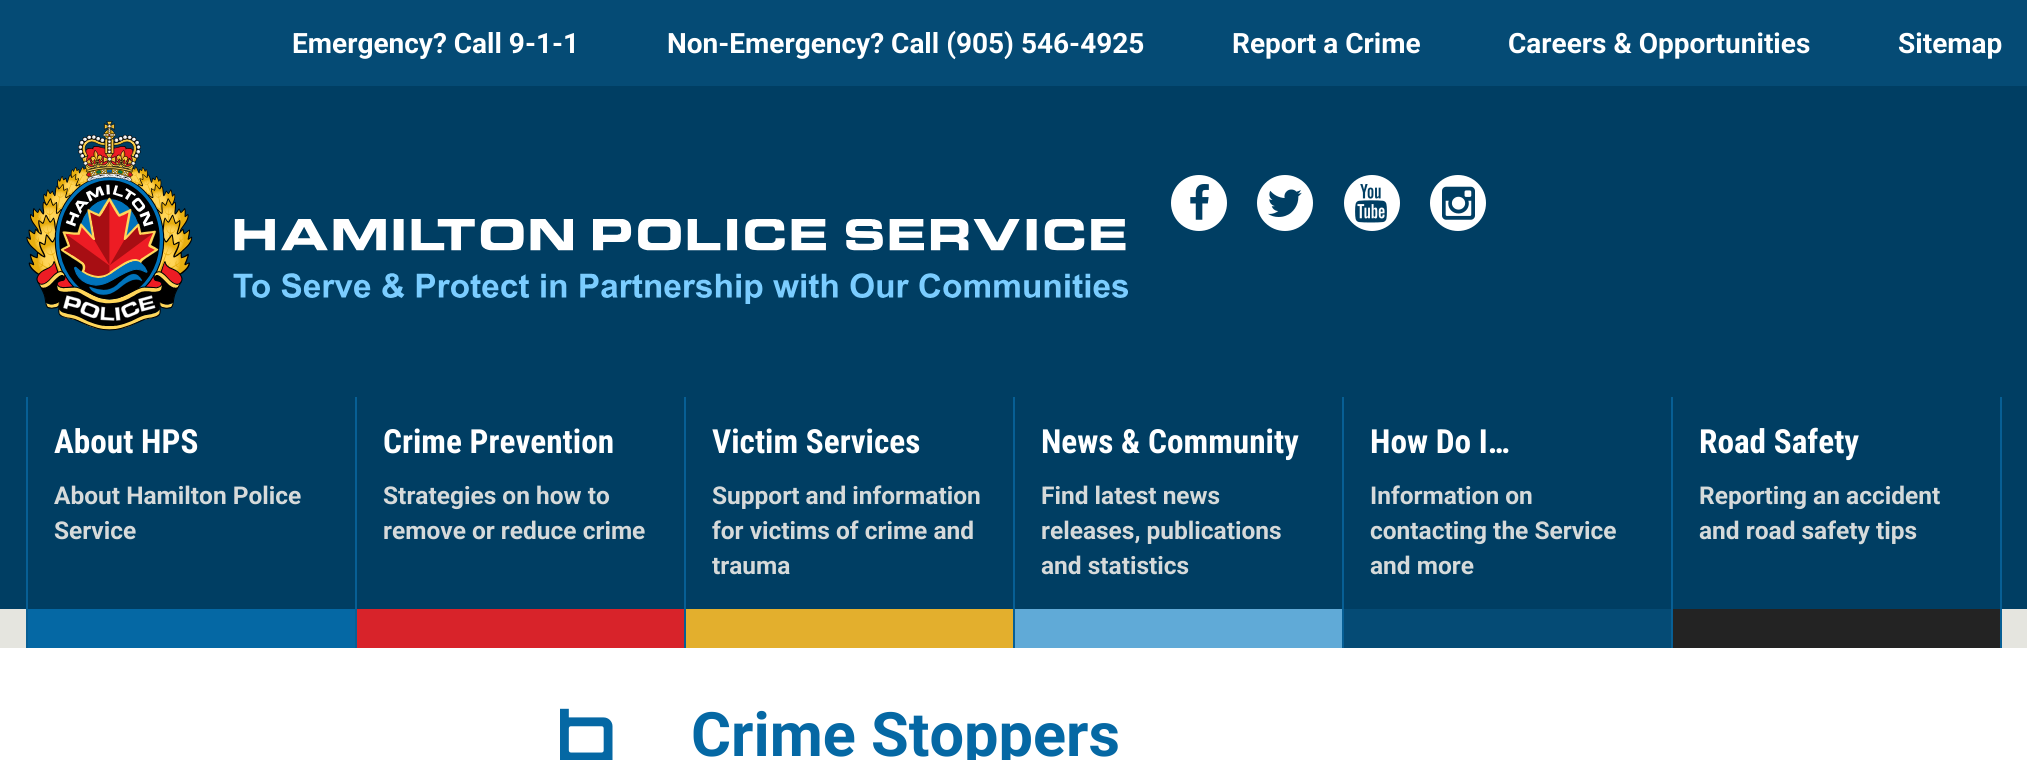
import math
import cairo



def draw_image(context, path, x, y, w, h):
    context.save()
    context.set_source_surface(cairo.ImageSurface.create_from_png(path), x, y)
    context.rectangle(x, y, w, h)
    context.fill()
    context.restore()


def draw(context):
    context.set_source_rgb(1, 1, 1)
    context.paint()
    context.set_source_rgb(5 / 255, 75 / 255, 117 / 255)
    context.rectangle(0, 0, 2027, 86)
    context.fill()
    context.set_source_rgb(0, 62 / 255, 99 / 255)
    context.rectangle(0, 86, 2027, 523)
    context.fill()
    draw_image(context, "images/1.png", 26, 121, 167, 210)
    context.set_source_rgb(1, 1, 1)
    context.arc(1199, 203, 28, 0, 2 * math.pi)
    context.fill()
    draw_image(context, "images/2.png", 1190, 184, 19, 36)
    context.arc(1285, 203, 28, 0, 2 * math.pi)
    context.fill()
    draw_image(context, "images/3.png", 1268, 189, 34, 28)
    context.arc(1372, 203, 28, 0, 2 * math.pi)
    context.fill()
    draw_image(context, "images/4.png", 1355, 184, 32, 39)
    context.arc(1458, 203, 28, 0, 2 * math.pi)
    context.fill()
    draw_image(context, "images/5.png", 1442, 186, 33, 34)
    draw_image(context, "images/6.png", 233, 219, 895, 85)
    context.set_source_rgb(229 / 255, 229 / 255, 223 / 255)
    context.rectangle(0, 609, 2027, 39)
    context.fill()
    context.set_source_rgb(7 / 255, 95 / 255, 149 / 255)
    context.rectangle(26, 397, 2, 251)
    context.fill()
    context.set_source_rgb(5 / 255, 104 / 255, 164 / 255)
    context.rectangle(28, 609, 327, 39)
    context.fill()
    context.set_source_rgb(7 / 255, 95 / 255, 149 / 255)
    context.rectangle(355, 397, 2, 251)
    context.fill()
    context.set_source_rgb(216 / 255, 35 / 255, 42 / 255)
    context.rectangle(357, 609, 327, 39)
    context.fill()
    context.set_source_rgb(7 / 255, 95 / 255, 149 / 255)
    context.rectangle(684, 397, 2, 251)
    context.fill()
    context.set_source_rgb(227 / 255, 175 / 255, 45 / 255)
    context.rectangle(686, 609, 327, 39)
    context.fill()
    context.set_source_rgb(7 / 255, 95 / 255, 149 / 255)
    context.rectangle(1013, 397, 2, 251)
    context.fill()
    context.set_source_rgb(96 / 255, 170 / 255, 215 / 255)
    context.rectangle(1015, 609, 327, 39)
    context.fill()
    context.set_source_rgb(7 / 255, 95 / 255, 149 / 255)
    context.rectangle(1342, 397, 2, 251)
    context.fill()
    context.set_source_rgb(5 / 255, 75 / 255, 117 / 255)
    context.rectangle(1344, 609, 327, 39)
    context.fill()
    context.set_source_rgb(7 / 255, 95 / 255, 149 / 255)
    context.rectangle(1671, 397, 2, 251)
    context.fill()
    context.set_source_rgb(35 / 255, 35 / 255, 35 / 255)
    context.rectangle(1673, 609, 327, 39)
    context.fill()
    context.set_source_rgb(7 / 255, 95 / 255, 149 / 255)
    context.rectangle(2000, 397, 2, 251)
    context.fill()
    draw_image(context, "images/7.png", 560, 708, 53, 52)
    context.select_font_face("Roboto", cairo.FontSlant.NORMAL, cairo.FontWeight.BOLD)
    context.set_font_size(28)
    context.set_source_rgb(1, 1, 1)
    context.move_to(292, 53)
    context.show_text("Emergency? Call 9-1-1")
    context.move_to(667, 53)
    context.show_text("Non-Emergency? Call (905) 546-4925")
    context.move_to(1232, 53)
    context.show_text("Report a Crime")
    context.move_to(1508, 53)
    context.show_text("Careers & Opportunities")
    context.move_to(1898, 53)
    context.show_text("Sitemap")
    context.select_font_face("Roboto Condensed", cairo.FontSlant.NORMAL, cairo.FontWeight.BOLD)
    context.set_font_size(33.25)
    context.move_to(54, 453)
    context.show_text("About HPS")
    context.select_font_face("Roboto", cairo.FontSlant.NORMAL, cairo.FontWeight.BOLD)
    context.set_font_size(24.5)
    context.set_source_rgb(214 / 255, 218 / 255, 218 / 255)
    context.move_to(54, 504)
    context.show_text("About Hamilton Police")
    context.move_to(54, 539)
    context.show_text("Service")
    context.select_font_face("Roboto Condensed", cairo.FontSlant.NORMAL, cairo.FontWeight.BOLD)
    context.set_font_size(33.25)
    context.set_source_rgb(1, 1, 1)
    context.move_to(383, 453)
    context.show_text("Crime Prevention")
    context.select_font_face("Roboto", cairo.FontSlant.NORMAL, cairo.FontWeight.BOLD)
    context.set_font_size(24.5)
    context.set_source_rgb(214 / 255, 218 / 255, 218 / 255)
    context.move_to(383, 504)
    context.show_text("Strategies on how to")
    context.move_to(383, 539)
    context.show_text("remove or reduce crime")
    context.select_font_face("Roboto Condensed", cairo.FontSlant.NORMAL, cairo.FontWeight.BOLD)
    context.set_font_size(33.25)
    context.set_source_rgb(1, 1, 1)
    context.move_to(712, 453)
    context.show_text("Victim Services")
    context.select_font_face("Roboto", cairo.FontSlant.NORMAL, cairo.FontWeight.BOLD)
    context.set_font_size(24.5)
    context.set_source_rgb(214 / 255, 218 / 255, 218 / 255)
    context.move_to(712, 504)
    context.show_text("Support and information")
    context.move_to(712, 539)
    context.show_text("for victims of crime and")
    context.move_to(712, 574)
    context.show_text("trauma")
    context.select_font_face("Roboto Condensed", cairo.FontSlant.NORMAL, cairo.FontWeight.BOLD)
    context.set_font_size(33.25)
    context.set_source_rgb(1, 1, 1)
    context.move_to(1041, 453)
    context.show_text("News & Community")
    context.select_font_face("Roboto", cairo.FontSlant.NORMAL, cairo.FontWeight.BOLD)
    context.set_font_size(24.5)
    context.set_source_rgb(214 / 255, 218 / 255, 218 / 255)
    context.move_to(1041, 504)
    context.show_text("Find latest news")
    context.move_to(1041, 539)
    context.show_text("releases, publications")
    context.move_to(1041, 574)
    context.show_text("and statistics")
    context.select_font_face("Roboto Condensed", cairo.FontSlant.NORMAL, cairo.FontWeight.BOLD)
    context.set_font_size(33.25)
    context.set_source_rgb(1, 1, 1)
    context.move_to(1370, 453)
    context.show_text("How Do I…")
    context.select_font_face("Roboto", cairo.FontSlant.NORMAL, cairo.FontWeight.BOLD)
    context.set_font_size(24.5)
    context.set_source_rgb(214 / 255, 218 / 255, 218 / 255)
    context.move_to(1370, 504)
    context.show_text("Information on")
    context.move_to(1370, 539)
    context.show_text("contacting the Service")
    context.move_to(1370, 574)
    context.show_text("and more")
    context.select_font_face("Roboto Condensed", cairo.FontSlant.NORMAL, cairo.FontWeight.BOLD)
    context.set_font_size(33.25)
    context.set_source_rgb(1, 1, 1)
    context.move_to(1699, 453)
    context.show_text("Road Safety")
    context.select_font_face("Roboto", cairo.FontSlant.NORMAL, cairo.FontWeight.BOLD)
    context.set_font_size(24.5)
    context.set_source_rgb(214 / 255, 218 / 255, 218 / 255)
    context.move_to(1699, 504)
    context.show_text("Reporting an accident")
    context.move_to(1699, 539)
    context.show_text("and road safety tips")
    context.set_font_size(61.25)
    context.set_source_rgb(5 / 255, 104 / 255, 164 / 255)
    context.move_to(691, 756)
    context.show_text("Crime Stoppers")


surface = cairo.ImageSurface(cairo.Format.RGB24, 2027, 760)
context = cairo.Context(surface)
options = cairo.FontOptions()
options.set_hint_metrics(cairo.HintMetrics.OFF)
options.set_hint_style(cairo.HintStyle.NONE)
context.set_font_options(options)
context.set_miter_limit(4)
draw(context)
surface.write_to_png("out.png")
